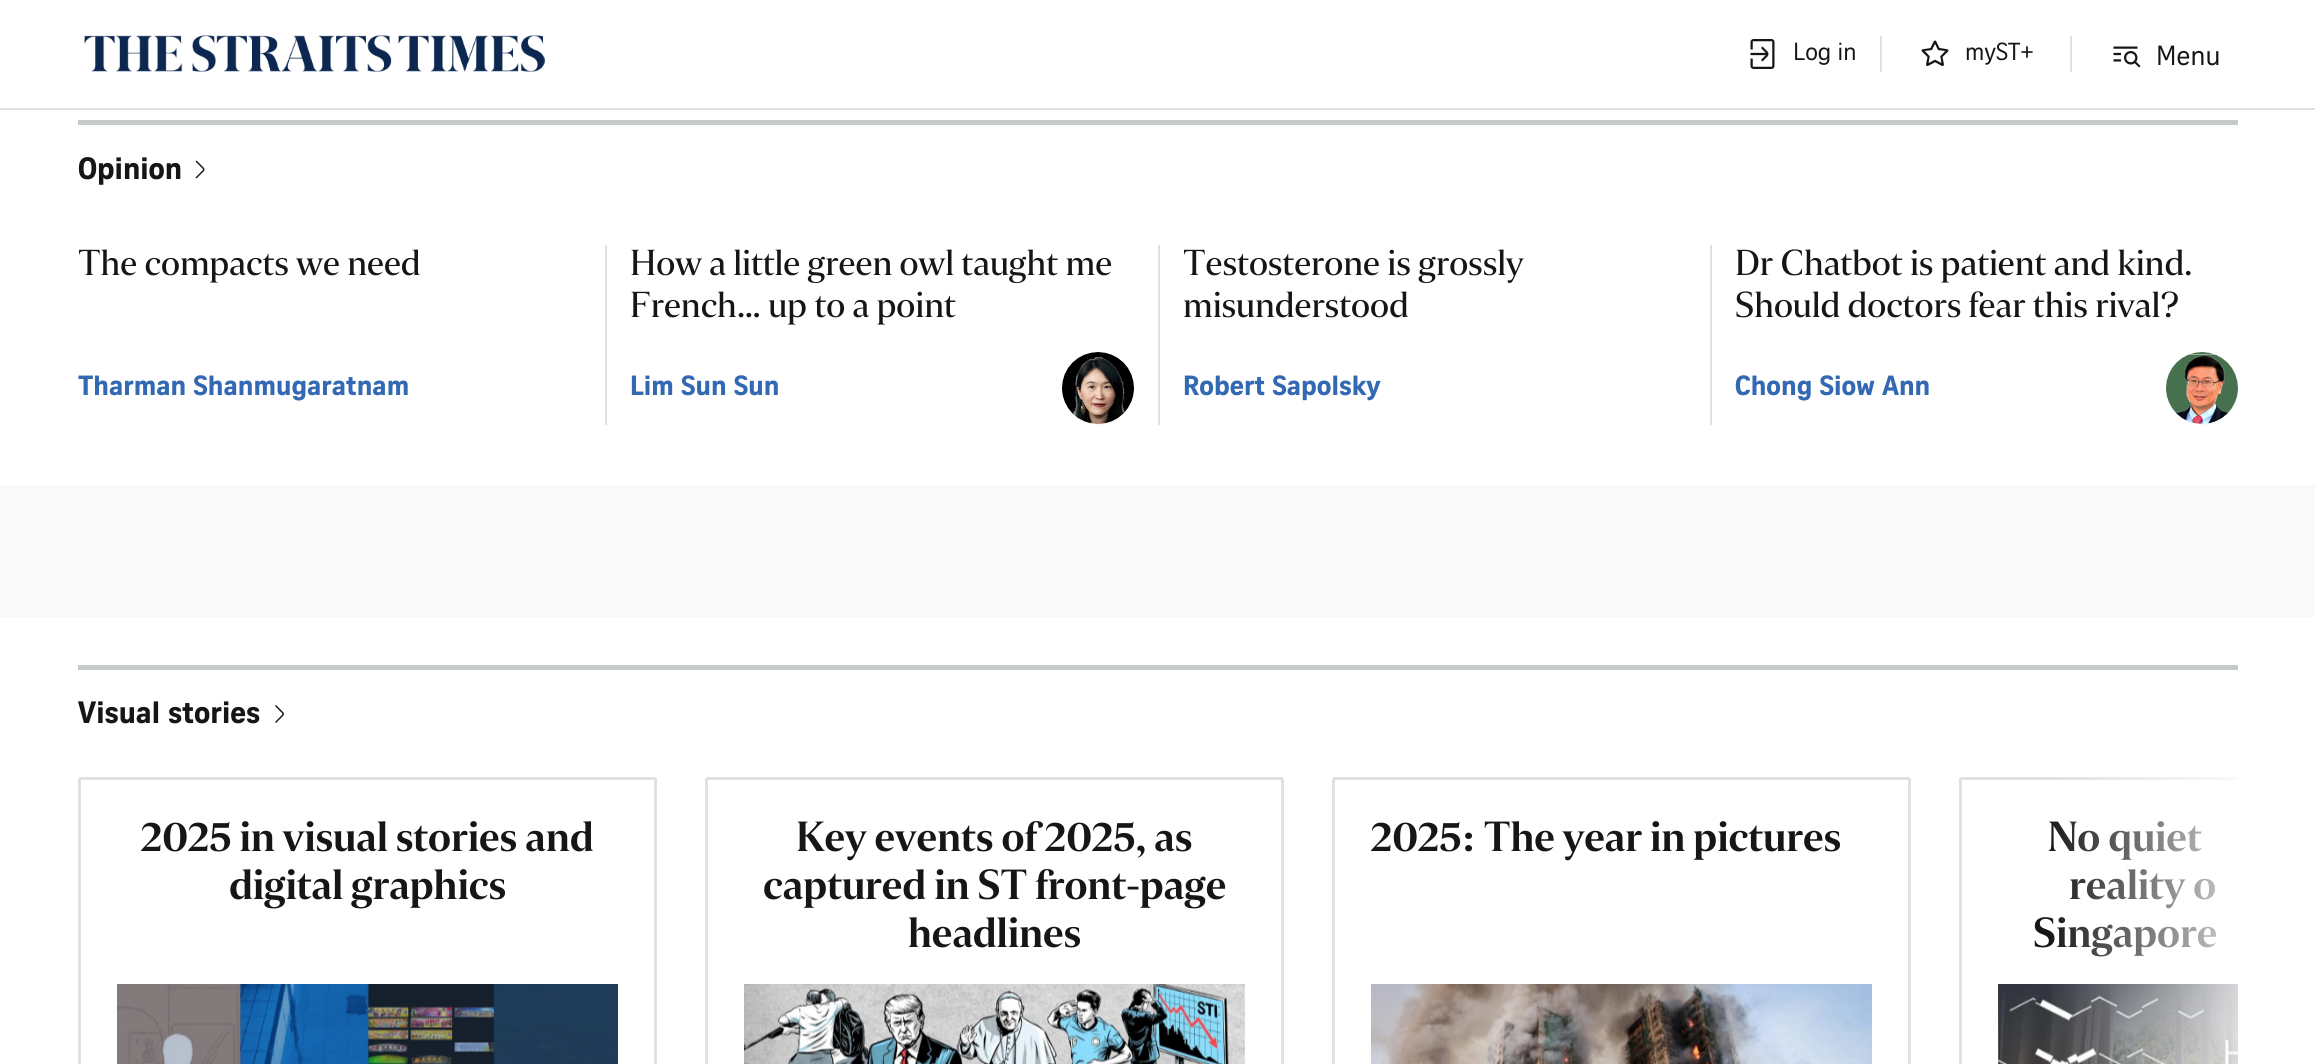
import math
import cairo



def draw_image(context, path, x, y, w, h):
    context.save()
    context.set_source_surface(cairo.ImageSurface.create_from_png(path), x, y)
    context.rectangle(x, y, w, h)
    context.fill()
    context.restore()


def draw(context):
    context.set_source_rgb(1, 1, 1)
    context.paint()
    context.set_source_rgb(221 / 255, 225 / 255, 226 / 255)
    context.rectangle(0, 108, 2315, 2)
    context.fill()
    draw_image(context, "images/1.png", 84, 35, 461, 37)
    draw_image(context, "images/2.png", 1750, 39, 25, 30)
    context.rectangle(1880, 36, 2, 36)
    context.fill()
    draw_image(context, "images/3.png", 1921, 40, 28, 26)
    context.rectangle(2070, 36, 2, 36)
    context.fill()
    draw_image(context, "images/4.png", 2113, 46, 28, 22)
    context.set_source_rgb(199 / 255, 202 / 255, 202 / 255)
    context.rectangle(78, 120, 2160, 5)
    context.fill()
    draw_image(context, "images/5.png", 195, 160, 10, 19)
    context.set_source_rgb(221 / 255, 225 / 255, 226 / 255)
    context.rectangle(605, 245, 2, 180)
    context.fill()
    context.set_source_rgb(249 / 255, 249 / 255, 249 / 255)
    context.arc(1098, 389, 36, 0, 2 * math.pi)
    context.fill()
    draw_image(context, "images/6.png", 1062, 352, 72, 72)
    context.set_source_rgb(221 / 255, 225 / 255, 226 / 255)
    context.rectangle(1158, 245, 2, 180)
    context.fill()
    context.rectangle(1710, 245, 2, 180)
    context.fill()
    context.set_source_rgb(249 / 255, 249 / 255, 249 / 255)
    context.arc(2202, 389, 36, 0, 2 * math.pi)
    context.fill()
    draw_image(context, "images/7.png", 2166, 352, 72, 72)
    context.rectangle(0, 485, 2315, 132)
    context.fill()
    context.set_source_rgb(199 / 255, 202 / 255, 202 / 255)
    context.rectangle(78, 665, 2160, 5)
    context.fill()
    draw_image(context, "images/8.png", 275, 705, 9, 18)
    context.new_path()
    context.move_to(81, 778.5)
    context.line_to(654, 778.5)
    context.curve_to(655, 778.5, 655.5, 779, 655.5, 780)
    context.line_to(655.5, 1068.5)
    context.line_to(79.5, 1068.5)
    context.line_to(79.5, 780)
    context.curve_to(79.5, 779, 80, 778.5, 81, 778.5)
    context.close_path()
    context.set_source_rgb(221 / 255, 225 / 255, 226 / 255)
    context.set_line_width(3)
    context.stroke()
    draw_image(context, "images/9.png", 117, 984, 501, 80)
    context.new_path()
    context.move_to(708, 778.5)
    context.line_to(1281, 778.5)
    context.curve_to(1282, 778.5, 1282.5, 779, 1282.5, 780)
    context.line_to(1282.5, 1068.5)
    context.line_to(706.5, 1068.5)
    context.line_to(706.5, 780)
    context.curve_to(706.5, 779, 707, 778.5, 708, 778.5)
    context.close_path()
    context.stroke()
    draw_image(context, "images/10.png", 744, 984, 501, 80)
    context.new_path()
    context.move_to(1335, 778.5)
    context.line_to(1908, 778.5)
    context.curve_to(1909, 778.5, 1909.5, 779, 1909.5, 780)
    context.line_to(1909.5, 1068.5)
    context.line_to(1333.5, 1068.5)
    context.line_to(1333.5, 780)
    context.curve_to(1333.5, 779, 1334, 778.5, 1335, 778.5)
    context.close_path()
    context.stroke()
    draw_image(context, "images/11.png", 1371, 984, 501, 80)
    context.save()
    context.rectangle(78, 777, 2160, 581)
    context.clip()
    context.new_path()
    context.move_to(1962, 778.5)
    context.line_to(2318, 778.5)
    context.curve_to(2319, 778.5, 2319.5, 779, 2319.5, 780)
    context.line_to(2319.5, 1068.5)
    context.line_to(1960.5, 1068.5)
    context.line_to(1960.5, 780)
    context.curve_to(1960.5, 779, 1961, 778.5, 1962, 778.5)
    context.close_path()
    context.stroke()
    context.restore()
    draw_image(context, "images/12.png", 1998, 984, 240, 80)
    context.select_font_face("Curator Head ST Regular")
    context.set_font_size(24)
    context.set_source_rgb(22 / 255, 22 / 255, 22 / 255)
    context.move_to(1793, 60)
    context.show_text("Log in")
    context.move_to(1965, 60)
    context.show_text("myST+")
    context.set_font_size(27)
    context.move_to(2156, 65)
    context.show_text("Menu")
    context.select_font_face("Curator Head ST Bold", cairo.FontSlant.NORMAL, cairo.FontWeight.BOLD)
    context.set_font_size(30)
    context.move_to(78, 179)
    context.show_text("Opinion")
    context.select_font_face("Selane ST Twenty")
    context.set_font_size(36)
    context.move_to(78, 275)
    context.show_text("The compacts we need")
    context.select_font_face("Curator Head ST Bold", cairo.FontSlant.NORMAL, cairo.FontWeight.BOLD)
    context.set_font_size(27)
    context.set_source_rgb(51 / 255, 104 / 255, 178 / 255)
    context.move_to(78, 395)
    context.show_text("Tharman Shanmugaratnam")
    context.select_font_face("Selane ST Twenty")
    context.set_font_size(36)
    context.set_source_rgb(22 / 255, 22 / 255, 22 / 255)
    context.move_to(630, 275)
    context.show_text("How a little green owl taught me")
    context.move_to(630, 317)
    context.show_text("French… up to a point")
    context.select_font_face("Curator Head ST Bold", cairo.FontSlant.NORMAL, cairo.FontWeight.BOLD)
    context.set_font_size(27)
    context.set_source_rgb(51 / 255, 104 / 255, 178 / 255)
    context.move_to(630, 395)
    context.show_text("Lim Sun Sun")
    context.select_font_face("Selane ST Twenty")
    context.set_font_size(36)
    context.set_source_rgb(22 / 255, 22 / 255, 22 / 255)
    context.move_to(1183, 275)
    context.show_text("Testosterone is grossly")
    context.move_to(1183, 317)
    context.show_text("misunderstood")
    context.select_font_face("Curator Head ST Bold", cairo.FontSlant.NORMAL, cairo.FontWeight.BOLD)
    context.set_font_size(27)
    context.set_source_rgb(51 / 255, 104 / 255, 178 / 255)
    context.move_to(1183, 395)
    context.show_text("Robert Sapolsky")
    context.select_font_face("Selane ST Twenty")
    context.set_font_size(36)
    context.set_source_rgb(22 / 255, 22 / 255, 22 / 255)
    context.move_to(1735, 275)
    context.show_text("Dr Chatbot is patient and kind.")
    context.move_to(1735, 317)
    context.show_text("Should doctors fear this rival?")
    context.select_font_face("Curator Head ST Bold", cairo.FontSlant.NORMAL, cairo.FontWeight.BOLD)
    context.set_font_size(27)
    context.set_source_rgb(51 / 255, 104 / 255, 178 / 255)
    context.move_to(1735, 395)
    context.show_text("Chong Siow Ann")
    context.set_font_size(30)
    context.set_source_rgb(22 / 255, 22 / 255, 22 / 255)
    context.move_to(78, 723)
    context.show_text("Visual stories")
    context.select_font_face("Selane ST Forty")
    context.set_font_size(42)
    context.move_to(141, 851)
    context.show_text("2025 in visual stories and")
    context.move_to(229, 899)
    context.show_text("digital graphics")
    context.move_to(796, 851)
    context.show_text("Key events of 2025, as")
    context.move_to(763, 899)
    context.show_text("captured in ST front-page")
    context.move_to(908, 947)
    context.show_text("headlines")
    context.move_to(1371, 851)
    context.show_text("2025: The year in pictures")
    context.move_to(2048, 851)
    context.show_text("No quiet")
    context.move_to(2069, 899)
    context.show_text("reality o")
    context.move_to(2033, 947)
    context.show_text("Singapore")
    gradient = cairo.LinearGradient(2238, 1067, 2046, 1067)
    gradient.add_color_stop_rgba(0, 1, 1, 1, 0.8)
    gradient.add_color_stop_rgba(1, 1, 1, 1, 0)
    context.set_source(gradient)
    context.rectangle(2051, 777, 187, 287)
    context.fill()


surface = cairo.ImageSurface(cairo.Format.RGB24, 2315, 1064)
context = cairo.Context(surface)
options = cairo.FontOptions()
options.set_hint_metrics(cairo.HintMetrics.OFF)
options.set_hint_style(cairo.HintStyle.NONE)
context.set_font_options(options)
context.set_miter_limit(4)
draw(context)
surface.write_to_png("out.png")
